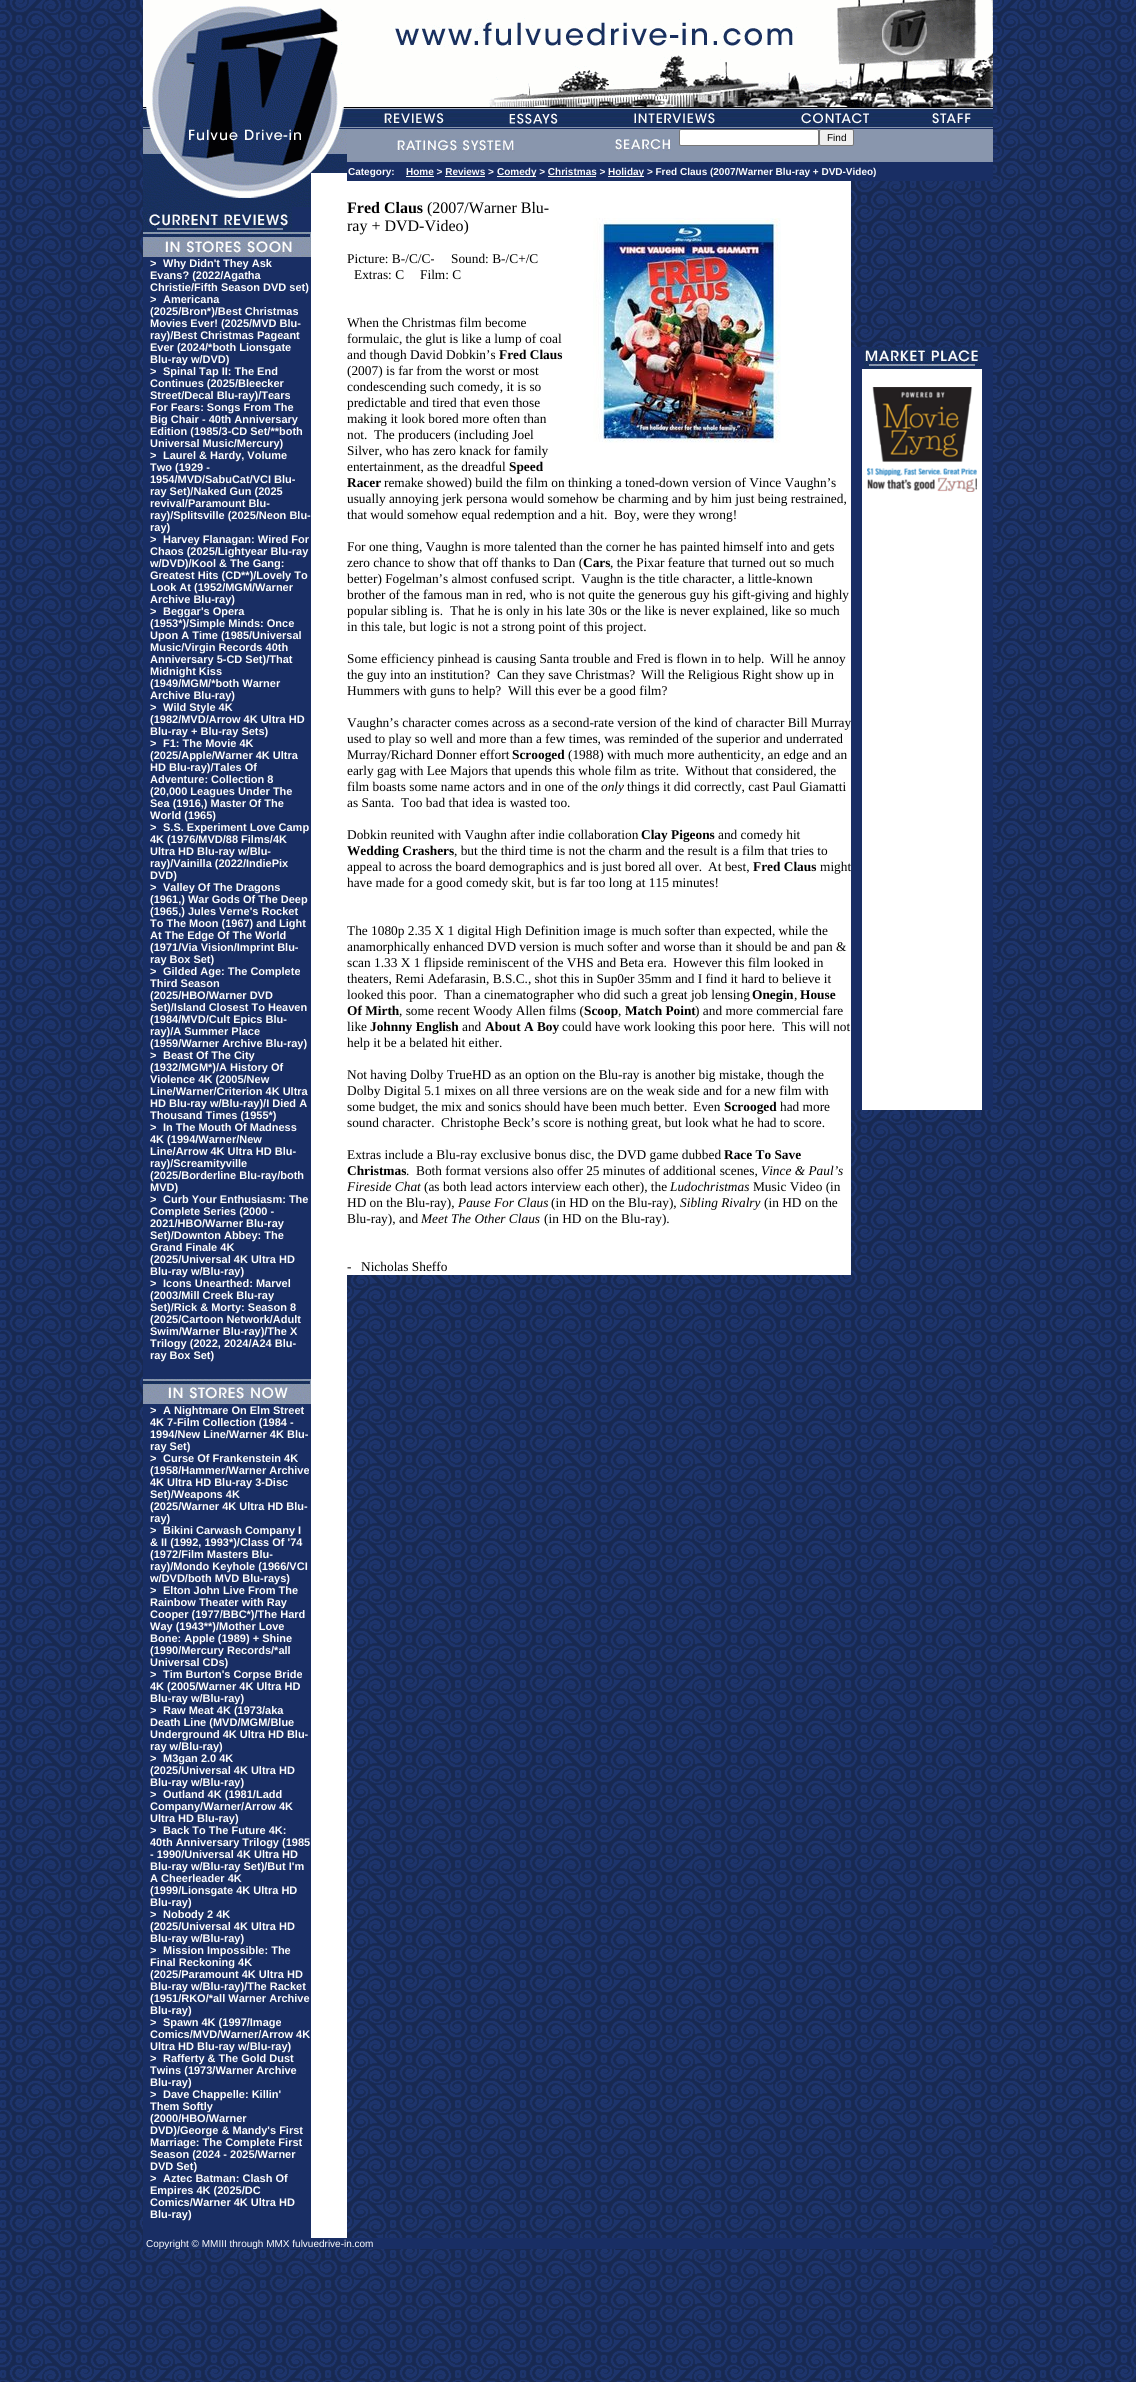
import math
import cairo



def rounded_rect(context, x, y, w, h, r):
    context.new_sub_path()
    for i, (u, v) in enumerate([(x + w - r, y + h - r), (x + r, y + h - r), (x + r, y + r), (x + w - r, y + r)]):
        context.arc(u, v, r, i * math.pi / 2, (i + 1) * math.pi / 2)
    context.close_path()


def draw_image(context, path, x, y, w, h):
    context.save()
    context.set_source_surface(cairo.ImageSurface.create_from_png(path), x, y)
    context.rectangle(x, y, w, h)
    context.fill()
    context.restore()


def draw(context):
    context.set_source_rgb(1, 1, 1)
    context.paint()
    draw_image(context, "images/1.png", 0, 0, 1136, 2382)
    draw_image(context, "images/2.png", 143, 0, 204, 173)
    context.set_source_rgb(1, 1, 1)
    context.rectangle(311, 173, 36, 2065)
    context.fill()
    draw_image(context, "images/3.png", 143, 173, 168, 34)
    context.set_source_rgb(25 / 255, 46 / 255, 100 / 255)
    context.rectangle(292, 207, 19, 25)
    context.fill()
    draw_image(context, "images/4.png", 143, 207, 149, 25)
    draw_image(context, "images/5.png", 143, 232, 168, 25)
    context.rectangle(143, 257, 168, 1122)
    context.fill()
    draw_image(context, "images/6.png", 143, 1379, 168, 25)
    context.rectangle(143, 1404, 168, 834)
    context.fill()
    draw_image(context, "images/7.png", 347, 0, 646, 107)
    draw_image(context, "images/8.png", 347, 107, 646, 22)
    draw_image(context, "images/9.png", 383, 112, 62, 12)
    draw_image(context, "images/10.png", 508, 112, 51, 12)
    draw_image(context, "images/11.png", 633, 112, 83, 12)
    draw_image(context, "images/12.png", 800, 112, 70, 12)
    draw_image(context, "images/13.png", 931, 112, 40, 12)
    context.set_source_rgb(137 / 255, 150 / 255, 173 / 255)
    context.rectangle(347, 129, 646, 33)
    context.fill()
    draw_image(context, "images/14.png", 396, 139, 119, 13)
    draw_image(context, "images/15.png", 614, 138, 57, 13)
    context.set_source_rgb(1, 1, 1)
    rounded_rect(context, 679.5, 129.5, 139, 16, 1.5)
    context.fill_preserve()
    context.set_source_rgb(118 / 255, 118 / 255, 118 / 255)
    context.set_line_width(1)
    context.stroke()
    context.set_source_rgb(239 / 255, 239 / 255, 239 / 255)
    rounded_rect(context, 819.5, 129.5, 34, 16, 1.5)
    context.fill_preserve()
    context.set_source_rgb(118 / 255, 118 / 255, 118 / 255)
    context.stroke()
    context.set_source_rgb(25 / 255, 46 / 255, 100 / 255)
    context.rectangle(347, 162, 646, 19)
    context.fill()
    context.set_source_rgb(1, 1, 1)
    context.rectangle(406, 176, 28, 1)
    context.fill()
    context.rectangle(445, 176, 40, 1)
    context.fill()
    context.rectangle(497, 176, 39, 1)
    context.fill()
    context.rectangle(548, 176, 48, 1)
    context.fill()
    context.rectangle(608, 176, 36, 1)
    context.fill()
    context.rectangle(347, 181, 504, 1094)
    context.fill()
    draw_image(context, "images/16.png", 593, 218, 188, 225)
    context.set_source_rgb(25 / 255, 46 / 255, 100 / 255)
    context.rectangle(851, 347, 142, 22)
    context.fill()
    draw_image(context, "images/17.png", 864, 348, 116, 21)
    context.rectangle(851, 369, 11, 741)
    context.fill()
    context.set_source_rgb(1, 1, 1)
    context.rectangle(862, 369, 120, 741)
    context.fill()
    draw_image(context, "images/18.png", 867, 387, 110, 105)
    context.set_source_rgb(25 / 255, 46 / 255, 100 / 255)
    context.rectangle(982, 369, 11, 741)
    context.fill()
    context.rectangle(143, 2238, 850, 11)
    context.fill()
    context.select_font_face("Liberation Sans", cairo.FontSlant.NORMAL, cairo.FontWeight.BOLD)
    context.set_font_size(11)
    context.set_source_rgb(1, 1, 1)
    context.move_to(150, 267)
    context.show_text(">")
    context.move_to(163, 267)
    context.show_text("Why Didn't They Ask")
    context.move_to(150, 279)
    context.show_text("Evans? (2022/Agatha")
    context.move_to(150, 291)
    context.show_text("Christie/Fifth Season DVD set)")
    context.move_to(150, 303)
    context.show_text(">")
    context.move_to(163, 303)
    context.show_text("Americana")
    context.move_to(150, 315)
    context.show_text("(2025/Bron*)/Best Christmas")
    context.move_to(150, 327)
    context.show_text("Movies Ever! (2025/MVD Blu-")
    context.move_to(150, 339)
    context.show_text("ray)/Best Christmas Pageant")
    context.move_to(150, 351)
    context.show_text("Ever (2024/*both Lionsgate")
    context.move_to(150, 363)
    context.show_text("Blu-ray w/DVD)")
    context.move_to(150, 375)
    context.show_text(">")
    context.move_to(163, 375)
    context.show_text("Spinal Tap II: The End")
    context.move_to(150, 387)
    context.show_text("Continues (2025/Bleecker")
    context.move_to(150, 399)
    context.show_text("Street/Decal Blu-ray)/Tears")
    context.move_to(150, 411)
    context.show_text("For Fears: Songs From The")
    context.move_to(150, 423)
    context.show_text("Big Chair - 40th Anniversary")
    context.move_to(150, 435)
    context.show_text("Edition (1985/3-CD Set/**both")
    context.move_to(150, 447)
    context.show_text("Universal Music/Mercury)")
    context.move_to(150, 459)
    context.show_text(">")
    context.move_to(163, 459)
    context.show_text("Laurel & Hardy, Volume")
    context.move_to(150, 471)
    context.show_text("Two (1929 -")
    context.move_to(150, 483)
    context.show_text("1954/MVD/SabuCat/VCI Blu-")
    context.move_to(150, 495)
    context.show_text("ray Set)/Naked Gun (2025")
    context.move_to(150, 507)
    context.show_text("revival/Paramount Blu-")
    context.move_to(150, 519)
    context.show_text("ray)/Splitsville (2025/Neon Blu-")
    context.move_to(150, 531)
    context.show_text("ray)")
    context.move_to(150, 543)
    context.show_text(">")
    context.move_to(163, 543)
    context.show_text("Harvey Flanagan: Wired For")
    context.move_to(150, 555)
    context.show_text("Chaos (2025/Lightyear Blu-ray")
    context.move_to(150, 567)
    context.show_text("w/DVD)/Kool & The Gang:")
    context.move_to(150, 579)
    context.show_text("Greatest Hits (CD**)/Lovely To")
    context.move_to(150, 591)
    context.show_text("Look At (1952/MGM/Warner")
    context.move_to(150, 603)
    context.show_text("Archive Blu-ray)")
    context.move_to(150, 615)
    context.show_text(">")
    context.move_to(163, 615)
    context.show_text("Beggar's Opera")
    context.move_to(150, 627)
    context.show_text("(1953*)/Simple Minds: Once")
    context.move_to(150, 639)
    context.show_text("Upon A Time (1985/Universal")
    context.move_to(150, 651)
    context.show_text("Music/Virgin Records 40th")
    context.move_to(150, 663)
    context.show_text("Anniversary 5-CD Set)/That")
    context.move_to(150, 675)
    context.show_text("Midnight Kiss")
    context.move_to(150, 687)
    context.show_text("(1949/MGM/*both Warner")
    context.move_to(150, 699)
    context.show_text("Archive Blu-ray)")
    context.move_to(150, 711)
    context.show_text(">")
    context.move_to(163, 711)
    context.show_text("Wild Style 4K")
    context.move_to(150, 723)
    context.show_text("(1982/MVD/Arrow 4K Ultra HD")
    context.move_to(150, 735)
    context.show_text("Blu-ray + Blu-ray Sets)")
    context.move_to(150, 747)
    context.show_text(">")
    context.move_to(163, 747)
    context.show_text("F1: The Movie 4K")
    context.move_to(150, 759)
    context.show_text("(2025/Apple/Warner 4K Ultra")
    context.move_to(150, 771)
    context.show_text("HD Blu-ray)/Tales Of")
    context.move_to(150, 783)
    context.show_text("Adventure: Collection 8")
    context.move_to(150, 795)
    context.show_text("(20,000 Leagues Under The")
    context.move_to(150, 807)
    context.show_text("Sea (1916,) Master Of The")
    context.move_to(150, 819)
    context.show_text("World (1965)")
    context.move_to(150, 831)
    context.show_text(">")
    context.move_to(163, 831)
    context.show_text("S.S. Experiment Love Camp")
    context.move_to(150, 843)
    context.show_text("4K (1976/MVD/88 Films/4K")
    context.move_to(150, 855)
    context.show_text("Ultra HD Blu-ray w/Blu-")
    context.move_to(150, 867)
    context.show_text("ray)/Vainilla (2022/IndiePix")
    context.move_to(150, 879)
    context.show_text("DVD)")
    context.move_to(150, 891)
    context.show_text(">")
    context.move_to(163, 891)
    context.show_text("Valley Of The Dragons")
    context.move_to(150, 903)
    context.show_text("(1961,) War Gods Of The Deep")
    context.move_to(150, 915)
    context.show_text("(1965,) Jules Verne's Rocket")
    context.move_to(150, 927)
    context.show_text("To The Moon (1967) and Light")
    context.move_to(150, 939)
    context.show_text("At The Edge Of The World")
    context.move_to(150, 951)
    context.show_text("(1971/Via Vision/Imprint Blu-")
    context.move_to(150, 963)
    context.show_text("ray Box Set)")
    context.move_to(150, 975)
    context.show_text(">")
    context.move_to(163, 975)
    context.show_text("Gilded Age: The Complete")
    context.move_to(150, 987)
    context.show_text("Third Season")
    context.move_to(150, 999)
    context.show_text("(2025/HBO/Warner DVD")
    context.move_to(150, 1011)
    context.show_text("Set)/Island Closest To Heaven")
    context.move_to(150, 1023)
    context.show_text("(1984/MVD/Cult Epics Blu-")
    context.move_to(150, 1035)
    context.show_text("ray)/A Summer Place")
    context.move_to(150, 1047)
    context.show_text("(1959/Warner Archive Blu-ray)")
    context.move_to(150, 1059)
    context.show_text(">")
    context.move_to(163, 1059)
    context.show_text("Beast Of The City")
    context.move_to(150, 1071)
    context.show_text("(1932/MGM*)/A History Of")
    context.move_to(150, 1083)
    context.show_text("Violence 4K (2005/New")
    context.move_to(150, 1095)
    context.show_text("Line/Warner/Criterion 4K Ultra")
    context.move_to(150, 1107)
    context.show_text("HD Blu-ray w/Blu-ray)/I Died A")
    context.move_to(150, 1119)
    context.show_text("Thousand Times (1955*)")
    context.move_to(150, 1131)
    context.show_text(">")
    context.move_to(163, 1131)
    context.show_text("In The Mouth Of Madness")
    context.move_to(150, 1143)
    context.show_text("4K (1994/Warner/New")
    context.move_to(150, 1155)
    context.show_text("Line/Arrow 4K Ultra HD Blu-")
    context.move_to(150, 1167)
    context.show_text("ray)/Screamityville")
    context.move_to(150, 1179)
    context.show_text("(2025/Borderline Blu-ray/both")
    context.move_to(150, 1191)
    context.show_text("MVD)")
    context.move_to(150, 1203)
    context.show_text(">")
    context.move_to(163, 1203)
    context.show_text("Curb Your Enthusiasm: The")
    context.move_to(150, 1215)
    context.show_text("Complete Series (2000 -")
    context.move_to(150, 1227)
    context.show_text("2021/HBO/Warner Blu-ray")
    context.move_to(150, 1239)
    context.show_text("Set)/Downton Abbey: The")
    context.move_to(150, 1251)
    context.show_text("Grand Finale 4K")
    context.move_to(150, 1263)
    context.show_text("(2025/Universal 4K Ultra HD")
    context.move_to(150, 1275)
    context.show_text("Blu-ray w/Blu-ray)")
    context.move_to(150, 1287)
    context.show_text(">")
    context.move_to(163, 1287)
    context.show_text("Icons Unearthed: Marvel")
    context.move_to(150, 1299)
    context.show_text("(2003/Mill Creek Blu-ray")
    context.move_to(150, 1311)
    context.show_text("Set)/Rick & Morty: Season 8")
    context.move_to(150, 1323)
    context.show_text("(2025/Cartoon Network/Adult")
    context.move_to(150, 1335)
    context.show_text("Swim/Warner Blu-ray)/The X")
    context.move_to(150, 1347)
    context.show_text("Trilogy (2022, 2024/A24 Blu-")
    context.move_to(150, 1359)
    context.show_text("ray Box Set)")
    context.move_to(150, 1414)
    context.show_text(">")
    context.move_to(163, 1414)
    context.show_text("A Nightmare On Elm Street")
    context.move_to(150, 1426)
    context.show_text("4K 7-Film Collection (1984 -")
    context.move_to(150, 1438)
    context.show_text("1994/New Line/Warner 4K Blu-")
    context.move_to(150, 1450)
    context.show_text("ray Set)")
    context.move_to(150, 1462)
    context.show_text(">")
    context.move_to(163, 1462)
    context.show_text("Curse Of Frankenstein 4K")
    context.move_to(150, 1474)
    context.show_text("(1958/Hammer/Warner Archive")
    context.move_to(150, 1486)
    context.show_text("4K Ultra HD Blu-ray 3-Disc")
    context.move_to(150, 1498)
    context.show_text("Set)/Weapons 4K")
    context.move_to(150, 1510)
    context.show_text("(2025/Warner 4K Ultra HD Blu-")
    context.move_to(150, 1522)
    context.show_text("ray)")
    context.move_to(150, 1534)
    context.show_text(">")
    context.move_to(163, 1534)
    context.show_text("Bikini Carwash Company I")
    context.move_to(150, 1546)
    context.show_text("& II (1992, 1993*)/Class Of '74")
    context.move_to(150, 1558)
    context.show_text("(1972/Film Masters Blu-")
    context.move_to(150, 1570)
    context.show_text("ray)/Mondo Keyhole (1966/VCI")
    context.move_to(150, 1582)
    context.show_text("w/DVD/both MVD Blu-rays)")
    context.move_to(150, 1594)
    context.show_text(">")
    context.move_to(163, 1594)
    context.show_text("Elton John Live From The")
    context.move_to(150, 1606)
    context.show_text("Rainbow Theater with Ray")
    context.move_to(150, 1618)
    context.show_text("Cooper (1977/BBC*)/The Hard")
    context.move_to(150, 1630)
    context.show_text("Way (1943**)/Mother Love")
    context.move_to(150, 1642)
    context.show_text("Bone: Apple (1989) + Shine")
    context.move_to(150, 1654)
    context.show_text("(1990/Mercury Records/*all")
    context.move_to(150, 1666)
    context.show_text("Universal CDs)")
    context.move_to(150, 1678)
    context.show_text(">")
    context.move_to(163, 1678)
    context.show_text("Tim Burton's Corpse Bride")
    context.move_to(150, 1690)
    context.show_text("4K (2005/Warner 4K Ultra HD")
    context.move_to(150, 1702)
    context.show_text("Blu-ray w/Blu-ray)")
    context.move_to(150, 1714)
    context.show_text(">")
    context.move_to(163, 1714)
    context.show_text("Raw Meat 4K (1973/aka")
    context.move_to(150, 1726)
    context.show_text("Death Line (MVD/MGM/Blue")
    context.move_to(150, 1738)
    context.show_text("Underground 4K Ultra HD Blu-")
    context.move_to(150, 1750)
    context.show_text("ray w/Blu-ray)")
    context.move_to(150, 1762)
    context.show_text(">")
    context.move_to(163, 1762)
    context.show_text("M3gan 2.0 4K")
    context.move_to(150, 1774)
    context.show_text("(2025/Universal 4K Ultra HD")
    context.move_to(150, 1786)
    context.show_text("Blu-ray w/Blu-ray)")
    context.move_to(150, 1798)
    context.show_text(">")
    context.move_to(163, 1798)
    context.show_text("Outland 4K (1981/Ladd")
    context.move_to(150, 1810)
    context.show_text("Company/Warner/Arrow 4K")
    context.move_to(150, 1822)
    context.show_text("Ultra HD Blu-ray)")
    context.move_to(150, 1834)
    context.show_text(">")
    context.move_to(163, 1834)
    context.show_text("Back To The Future 4K:")
    context.move_to(150, 1846)
    context.show_text("40th Anniversary Trilogy (1985")
    context.move_to(150, 1858)
    context.show_text("- 1990/Universal 4K Ultra HD")
    context.move_to(150, 1870)
    context.show_text("Blu-ray w/Blu-ray Set)/But I'm")
    context.move_to(150, 1882)
    context.show_text("A Cheerleader 4K")
    context.move_to(150, 1894)
    context.show_text("(1999/Lionsgate 4K Ultra HD")
    context.move_to(150, 1906)
    context.show_text("Blu-ray)")
    context.move_to(150, 1918)
    context.show_text(">")
    context.move_to(163, 1918)
    context.show_text("Nobody 2 4K")
    context.move_to(150, 1930)
    context.show_text("(2025/Universal 4K Ultra HD")
    context.move_to(150, 1942)
    context.show_text("Blu-ray w/Blu-ray)")
    context.move_to(150, 1954)
    context.show_text(">")
    context.move_to(163, 1954)
    context.show_text("Mission Impossible: The")
    context.move_to(150, 1966)
    context.show_text("Final Reckoning 4K")
    context.move_to(150, 1978)
    context.show_text("(2025/Paramount 4K Ultra HD")
    context.move_to(150, 1990)
    context.show_text("Blu-ray w/Blu-ray)/The Racket")
    context.move_to(150, 2002)
    context.show_text("(1951/RKO/*all Warner Archive")
    context.move_to(150, 2014)
    context.show_text("Blu-ray)")
    context.move_to(150, 2026)
    context.show_text(">")
    context.move_to(163, 2026)
    context.show_text("Spawn 4K (1997/Image")
    context.move_to(150, 2038)
    context.show_text("Comics/MVD/Warner/Arrow 4K")
    context.move_to(150, 2050)
    context.show_text("Ultra HD Blu-ray w/Blu-ray)")
    context.move_to(150, 2062)
    context.show_text(">")
    context.move_to(163, 2062)
    context.show_text("Rafferty & The Gold Dust")
    context.move_to(150, 2074)
    context.show_text("Twins (1973/Warner Archive")
    context.move_to(150, 2086)
    context.show_text("Blu-ray)")
    context.move_to(150, 2098)
    context.show_text(">")
    context.move_to(163, 2098)
    context.show_text("Dave Chappelle: Killin'")
    context.move_to(150, 2110)
    context.show_text("Them Softly")
    context.move_to(150, 2122)
    context.show_text("(2000/HBO/Warner")
    context.move_to(150, 2134)
    context.show_text("DVD)/George & Mandy's First")
    context.move_to(150, 2146)
    context.show_text("Marriage: The Complete First")
    context.move_to(150, 2158)
    context.show_text("Season (2024 - 2025/Warner")
    context.move_to(150, 2170)
    context.show_text("DVD Set)")
    context.move_to(150, 2182)
    context.show_text(">")
    context.move_to(163, 2182)
    context.show_text("Aztec Batman: Clash Of")
    context.move_to(150, 2194)
    context.show_text("Empires 4K (2025/DC")
    context.move_to(150, 2206)
    context.show_text("Comics/Warner 4K Ultra HD")
    context.move_to(150, 2218)
    context.show_text("Blu-ray)")
    context.select_font_face("Liberation Sans")
    context.set_font_size(10)
    context.set_source_rgb(0, 0, 0)
    context.move_to(827, 141)
    context.show_text("Find")
    context.select_font_face("Liberation Sans", cairo.FontSlant.NORMAL, cairo.FontWeight.BOLD)
    context.set_source_rgb(1, 1, 1)
    context.move_to(348, 175)
    context.show_text("Category:")
    context.move_to(406, 175)
    context.show_text("Home > Reviews >")
    context.move_to(497, 175)
    context.show_text("Comedy > Christmas >")
    context.move_to(608, 175)
    context.show_text("Holiday > Fred Claus (2007/Warner Blu-ray + DVD-Video)")
    context.select_font_face("Liberation Serif", cairo.FontSlant.NORMAL, cairo.FontWeight.BOLD)
    context.set_font_size(16)
    context.set_source_rgb(0, 0, 0)
    context.move_to(347, 213)
    context.show_text("Fred Claus")
    context.select_font_face("Liberation Serif")
    context.move_to(427, 213)
    context.show_text("(2007/Warner Blu-")
    context.move_to(347, 231)
    context.show_text("ray + DVD-Video)")
    context.set_font_size(13.35)
    context.move_to(347, 263)
    context.show_text("Picture: B-/C/C-")
    context.move_to(451, 263)
    context.show_text("Sound: B-/C+/C")
    context.move_to(354, 279)
    context.show_text("Extras: C")
    context.move_to(420, 279)
    context.show_text("Film: C")
    context.move_to(347, 327)
    context.show_text("When the Christmas film become")
    context.move_to(347, 343)
    context.show_text("formulaic, the glut is like a lump of coal")
    context.move_to(347, 359)
    context.show_text("and though David Dobkin’s")
    context.select_font_face("Liberation Serif", cairo.FontSlant.NORMAL, cairo.FontWeight.BOLD)
    context.move_to(499, 359)
    context.show_text("Fred Claus")
    context.select_font_face("Liberation Serif")
    context.move_to(347, 375)
    context.show_text("(2007) is far from the worst or most")
    context.move_to(347, 391)
    context.show_text("condescending such comedy, it is so")
    context.move_to(347, 407)
    context.show_text("predictable and tired that even those")
    context.move_to(347, 423)
    context.show_text("making it look bored more often than")
    context.move_to(347, 439)
    context.show_text("not.")
    context.move_to(374, 439)
    context.show_text("The producers (including Joel")
    context.move_to(347, 455)
    context.show_text("Silver, who has zero knack for family")
    context.move_to(347, 471)
    context.show_text("entertainment, as the dreadful")
    context.select_font_face("Liberation Serif", cairo.FontSlant.NORMAL, cairo.FontWeight.BOLD)
    context.move_to(509, 471)
    context.show_text("Speed")
    context.move_to(347, 487)
    context.show_text("Racer")
    context.select_font_face("Liberation Serif")
    context.move_to(384, 487)
    context.show_text("remake showed) build the film on thinking a toned-down version of Vince Vaughn’s")
    context.move_to(347, 503)
    context.show_text("usually annoying jerk persona would somehow be charming and by him just being restrained,")
    context.move_to(347, 519)
    context.show_text("that would somehow equal redemption and a hit.")
    context.move_to(614, 519)
    context.show_text("Boy, were they wrong!")
    context.move_to(347, 551)
    context.show_text("For one thing, Vaughn is more talented than the corner he has painted himself into and gets")
    context.move_to(347, 567)
    context.show_text("zero chance to show that off thanks to Dan (")
    context.select_font_face("Liberation Serif", cairo.FontSlant.NORMAL, cairo.FontWeight.BOLD)
    context.move_to(583, 567)
    context.show_text("Cars")
    context.select_font_face("Liberation Serif")
    context.move_to(610, 567)
    context.show_text(", the Pixar feature that turned out so much")
    context.move_to(347, 583)
    context.show_text("better) Fogelman’s almost confused script.")
    context.move_to(581, 583)
    context.show_text("Vaughn is the title character, a little-known")
    context.move_to(347, 599)
    context.show_text("brother of the famous man in red, who is not quite the generous guy his gift-giving and highly")
    context.move_to(347, 615)
    context.show_text("popular sibling is.")
    context.move_to(450, 615)
    context.show_text("That he is only in his late 30s or the like is never explained, like so much")
    context.move_to(347, 631)
    context.show_text("in this tale, but logic is not a strong point of this project.")
    context.move_to(347, 663)
    context.show_text("Some efficiency pinhead is causing Santa trouble and Fred is flown in to help.")
    context.move_to(770, 663)
    context.show_text("Will he annoy")
    context.move_to(347, 679)
    context.show_text("the guy into an institution?")
    context.move_to(497, 679)
    context.show_text("Can they save Christmas?")
    context.move_to(641, 679)
    context.show_text("Will the Religious Right show up in")
    context.move_to(347, 695)
    context.show_text("Hummers with guns to help?")
    context.move_to(508, 695)
    context.show_text("Will this ever be a good film?")
    context.move_to(347, 727)
    context.show_text("Vaughn’s character comes across as a second-rate version of the kind of character Bill Murray")
    context.move_to(347, 743)
    context.show_text("used to play so well and more than a few times, was reminded of the superior and underrated")
    context.move_to(347, 759)
    context.show_text("Murray/Richard Donner effort")
    context.select_font_face("Liberation Serif", cairo.FontSlant.NORMAL, cairo.FontWeight.BOLD)
    context.move_to(512, 759)
    context.show_text("Scrooged")
    context.select_font_face("Liberation Serif")
    context.move_to(568, 759)
    context.show_text("(1988) with much more authenticity, an edge and an")
    context.move_to(347, 775)
    context.show_text("early gag with Lee Majors that upends this whole film as trite.")
    context.move_to(685, 775)
    context.show_text("Without that considered, the")
    context.move_to(347, 791)
    context.show_text("film boasts some name actors and in one of the")
    context.select_font_face("Liberation Serif", cairo.FontSlant.ITALIC)
    context.move_to(601, 791)
    context.show_text("only")
    context.select_font_face("Liberation Serif")
    context.move_to(627, 791)
    context.show_text("things it did correctly, cast Paul Giamatti")
    context.move_to(347, 807)
    context.show_text("as Santa.")
    context.move_to(401, 807)
    context.show_text("Too bad that idea is wasted too.")
    context.move_to(347, 839)
    context.show_text("Dobkin reunited with Vaughn after indie collaboration")
    context.select_font_face("Liberation Serif", cairo.FontSlant.NORMAL, cairo.FontWeight.BOLD)
    context.move_to(641, 839)
    context.show_text("Clay Pigeons")
    context.select_font_face("Liberation Serif")
    context.move_to(718, 839)
    context.show_text("and comedy hit")
    context.select_font_face("Liberation Serif", cairo.FontSlant.NORMAL, cairo.FontWeight.BOLD)
    context.move_to(347, 855)
    context.show_text("Wedding Crashers")
    context.select_font_face("Liberation Serif")
    context.move_to(454, 855)
    context.show_text(", but the third time is not the charm and the result is a film that tries to")
    context.move_to(347, 871)
    context.show_text("appeal to across the board demographics and is just bored all over.")
    context.move_to(708, 871)
    context.show_text("At best,")
    context.select_font_face("Liberation Serif", cairo.FontSlant.NORMAL, cairo.FontWeight.BOLD)
    context.move_to(753, 871)
    context.show_text("Fred Claus")
    context.select_font_face("Liberation Serif")
    context.move_to(820, 871)
    context.show_text("might")
    context.move_to(347, 887)
    context.show_text("have made for a good comedy skit, but is far too long at 115 minutes!")
    context.move_to(347, 935)
    context.show_text("The 1080p 2.35 X 1 digital High Definition image is much softer than expected, while the")
    context.move_to(347, 951)
    context.show_text("anamorphically enhanced DVD version is much softer and worse than it should be and pan &")
    context.move_to(347, 967)
    context.show_text("scan 1.33 X 1 flipside reminiscent of the VHS and Beta era.")
    context.move_to(673, 967)
    context.show_text("However this film looked in")
    context.move_to(347, 983)
    context.show_text("theaters, Remi Adefarasin, B.S.C., shot this in Sup0er 35mm and I find it hard to believe it")
    context.move_to(347, 999)
    context.show_text("looked this poor.")
    context.move_to(444, 999)
    context.show_text("Than a cinematographer who did such a great job lensing")
    context.select_font_face("Liberation Serif", cairo.FontSlant.NORMAL, cairo.FontWeight.BOLD)
    context.move_to(752, 999)
    context.show_text("Onegin")
    context.select_font_face("Liberation Serif")
    context.move_to(794, 999)
    context.show_text(",")
    context.select_font_face("Liberation Serif", cairo.FontSlant.NORMAL, cairo.FontWeight.BOLD)
    context.move_to(800, 999)
    context.show_text("House")
    context.move_to(347, 1015)
    context.show_text("Of Mirth")
    context.select_font_face("Liberation Serif")
    context.move_to(399, 1015)
    context.show_text(", some recent Woody Allen films (")
    context.select_font_face("Liberation Serif", cairo.FontSlant.NORMAL, cairo.FontWeight.BOLD)
    context.move_to(584, 1015)
    context.show_text("Scoop")
    context.select_font_face("Liberation Serif")
    context.move_to(618, 1015)
    context.show_text(",")
    context.select_font_face("Liberation Serif", cairo.FontSlant.NORMAL, cairo.FontWeight.BOLD)
    context.move_to(625, 1015)
    context.show_text("Match Point")
    context.select_font_face("Liberation Serif")
    context.move_to(695, 1015)
    context.show_text(") and more commercial fare")
    context.move_to(347, 1031)
    context.show_text("like")
    context.select_font_face("Liberation Serif", cairo.FontSlant.NORMAL, cairo.FontWeight.BOLD)
    context.move_to(370, 1031)
    context.show_text("Johnny English")
    context.select_font_face("Liberation Serif")
    context.move_to(462, 1031)
    context.show_text("and")
    context.select_font_face("Liberation Serif", cairo.FontSlant.NORMAL, cairo.FontWeight.BOLD)
    context.move_to(485, 1031)
    context.show_text("About A Boy")
    context.select_font_face("Liberation Serif")
    context.move_to(562, 1031)
    context.show_text("could have work looking this poor here.")
    context.move_to(782, 1031)
    context.show_text("This will not")
    context.move_to(347, 1047)
    context.show_text("help it be a belated hit either.")
    context.move_to(347, 1079)
    context.show_text("Not having Dolby TrueHD as an option on the Blu-ray is another big mistake, though the")
    context.move_to(347, 1095)
    context.show_text("Dolby Digital 5.1 mixes on all three versions are on the weak side and for a new film with")
    context.move_to(347, 1111)
    context.show_text("some budget, the mix and sonics should have been much better.")
    context.move_to(693, 1111)
    context.show_text("Even")
    context.select_font_face("Liberation Serif", cairo.FontSlant.NORMAL, cairo.FontWeight.BOLD)
    context.move_to(724, 1111)
    context.show_text("Scrooged")
    context.select_font_face("Liberation Serif")
    context.move_to(780, 1111)
    context.show_text("had more")
    context.move_to(347, 1127)
    context.show_text("sound character.")
    context.move_to(441, 1127)
    context.show_text("Christophe Beck’s score is nothing great, but look what he had to score.")
    context.move_to(347, 1159)
    context.show_text("Extras include a Blu-ray exclusive bonus disc, the DVD game dubbed")
    context.select_font_face("Liberation Serif", cairo.FontSlant.NORMAL, cairo.FontWeight.BOLD)
    context.move_to(724, 1159)
    context.show_text("Race To Save")
    context.move_to(347, 1175)
    context.show_text("Christmas")
    context.select_font_face("Liberation Serif")
    context.move_to(406, 1175)
    context.show_text(".")
    context.move_to(416, 1175)
    context.show_text("Both format versions also offer 25 minutes of additional scenes,")
    context.select_font_face("Liberation Serif", cairo.FontSlant.ITALIC)
    context.move_to(761, 1175)
    context.show_text("Vince & Paul’s")
    context.move_to(347, 1191)
    context.show_text("Fireside Chat")
    context.select_font_face("Liberation Serif")
    context.move_to(424, 1191)
    context.show_text("(as both lead actors interview each other), the")
    context.select_font_face("Liberation Serif", cairo.FontSlant.ITALIC)
    context.move_to(670, 1191)
    context.show_text("Ludochristmas")
    context.select_font_face("Liberation Serif")
    context.move_to(753, 1191)
    context.show_text("Music Video (in")
    context.move_to(347, 1207)
    context.show_text("HD on the Blu-ray),")
    context.select_font_face("Liberation Serif", cairo.FontSlant.ITALIC)
    context.move_to(458, 1207)
    context.show_text("Pause For Claus")
    context.select_font_face("Liberation Serif")
    context.move_to(551, 1207)
    context.show_text("(in HD on the Blu-ray),")
    context.select_font_face("Liberation Serif", cairo.FontSlant.ITALIC)
    context.move_to(680, 1207)
    context.show_text("Sibling Rivalry")
    context.select_font_face("Liberation Serif")
    context.move_to(764, 1207)
    context.show_text("(in HD on the")
    context.move_to(347, 1223)
    context.show_text("Blu-ray), and")
    context.select_font_face("Liberation Serif", cairo.FontSlant.ITALIC)
    context.move_to(421, 1223)
    context.show_text("Meet The Other Claus")
    context.select_font_face("Liberation Serif")
    context.move_to(544, 1223)
    context.show_text("(in HD on the Blu-ray).")
    context.move_to(347, 1271)
    context.show_text("-")
    context.move_to(361, 1271)
    context.show_text("Nicholas Sheffo")
    context.select_font_face("Liberation Sans")
    context.set_font_size(10)
    context.set_source_rgb(1, 1, 1)
    context.move_to(146, 2247)
    context.show_text("Copyright © MMIII through MMX fulvuedrive-in.com")


surface = cairo.ImageSurface(cairo.Format.RGB24, 1136, 2382)
context = cairo.Context(surface)
options = cairo.FontOptions()
options.set_hint_metrics(cairo.HintMetrics.OFF)
options.set_hint_style(cairo.HintStyle.NONE)
context.set_font_options(options)
context.set_miter_limit(4)
draw(context)
surface.write_to_png("out.png")
